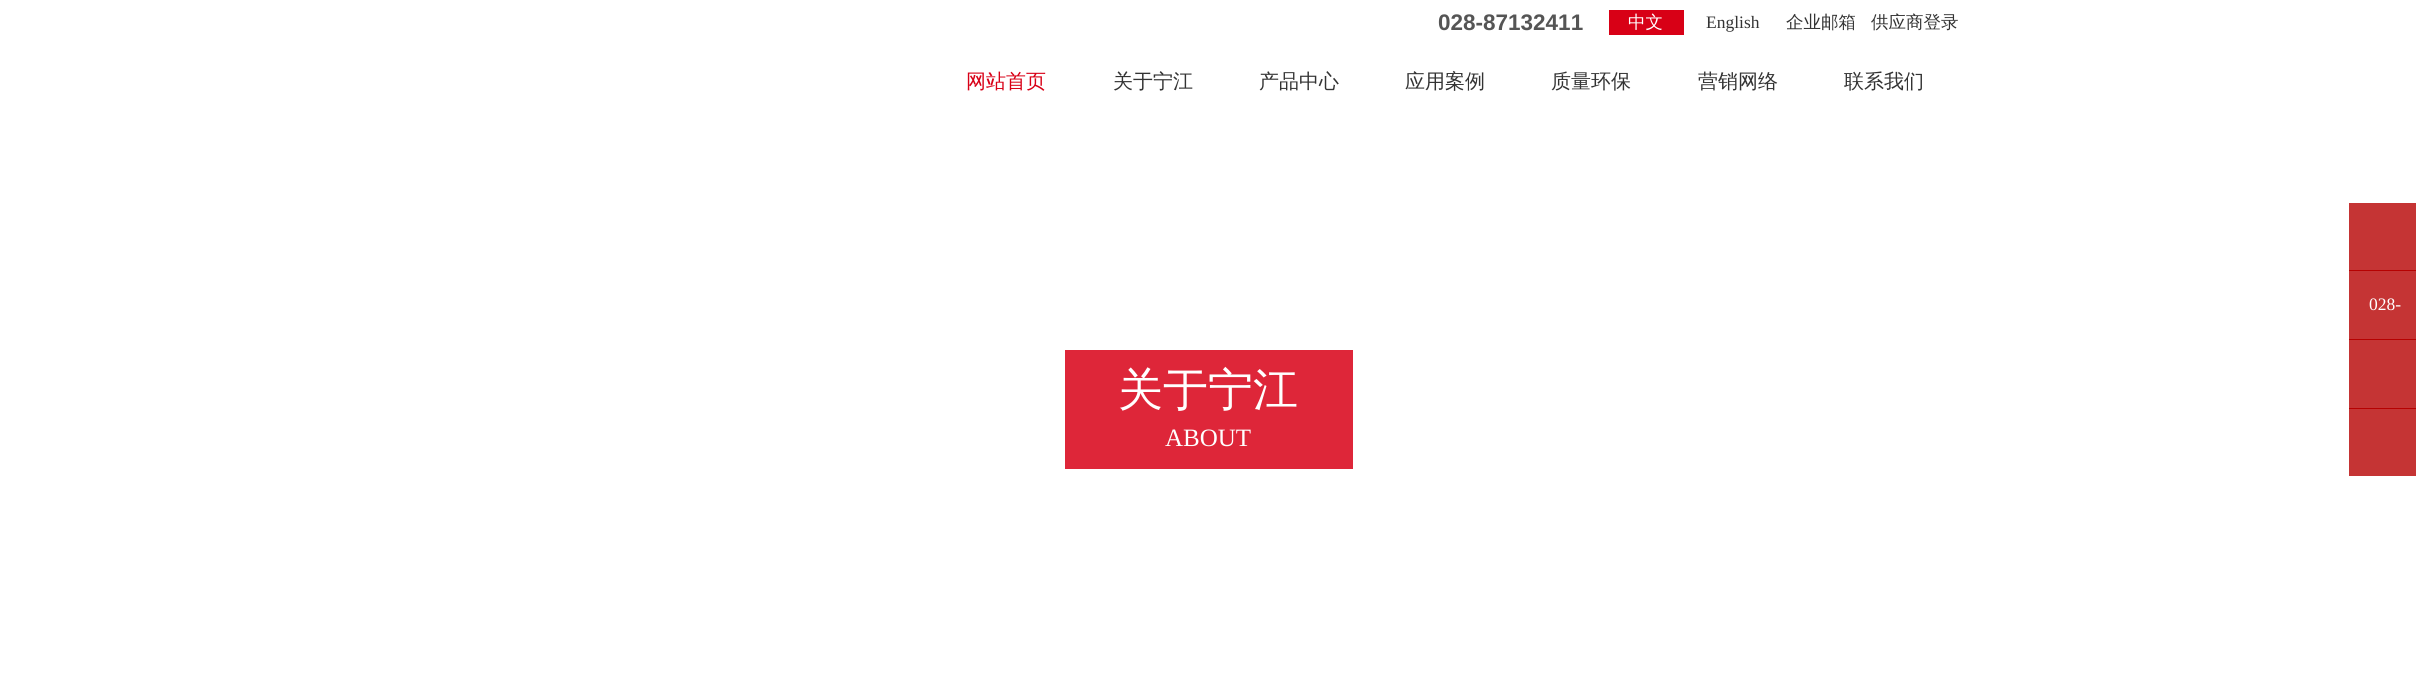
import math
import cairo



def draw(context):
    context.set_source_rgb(1, 1, 1)
    context.paint()
    context.set_source_rgb(216 / 255, 0, 22 / 255)
    context.rectangle(1609, 10, 75, 25)
    context.fill()
    context.set_source_rgb(182 / 255, 1 / 255, 1 / 255)
    context.rectangle(2349, 270, 67, 1)
    context.fill()
    context.set_source_rgb(197 / 255, 52 / 255, 52 / 255)
    context.rectangle(2349, 203, 67, 67)
    context.fill()
    context.set_source_rgb(182 / 255, 1 / 255, 1 / 255)
    context.rectangle(2349, 339, 67, 1)
    context.fill()
    context.set_source_rgb(197 / 255, 52 / 255, 52 / 255)
    context.rectangle(2349, 271, 67, 68)
    context.fill()
    context.set_source_rgb(182 / 255, 1 / 255, 1 / 255)
    context.rectangle(2349, 408, 67, 1)
    context.fill()
    context.set_source_rgb(197 / 255, 52 / 255, 52 / 255)
    context.rectangle(2349, 340, 67, 68)
    context.fill()
    context.rectangle(2349, 409, 67, 67)
    context.fill()
    context.set_source_rgb(222 / 255, 38 / 255, 57 / 255)
    context.rectangle(1065, 350, 288, 119)
    context.fill()
    context.select_font_face("Liberation Sans", cairo.FontSlant.NORMAL, cairo.FontWeight.BOLD)
    context.set_font_size(22.5)
    context.set_source_rgb(85 / 255, 85 / 255, 85 / 255)
    context.move_to(1438, 30)
    context.show_text("028-87132411")
    context.select_font_face("WenQuanYi Zen Hei Medium")
    context.set_font_size(17.5)
    context.set_source_rgb(1, 1, 1)
    context.move_to(1628, 28)
    context.show_text("中文")
    context.select_font_face("Liberation Serif")
    context.set_source_rgb(51 / 255, 51 / 255, 51 / 255)
    context.move_to(1706, 28)
    context.show_text("English")
    context.select_font_face("WenQuanYi Zen Hei Medium")
    context.move_to(1786, 28)
    context.show_text("企业邮箱")
    context.move_to(1871, 28)
    context.show_text("供应商登录")
    context.set_font_size(20)
    context.set_source_rgb(216 / 255, 0, 22 / 255)
    context.move_to(966, 88)
    context.show_text("网站首页")
    context.set_source_rgb(51 / 255, 51 / 255, 51 / 255)
    context.move_to(1113, 88)
    context.show_text("关于宁江")
    context.move_to(1259, 88)
    context.show_text("产品中心")
    context.move_to(1405, 88)
    context.show_text("应用案例")
    context.move_to(1551, 88)
    context.show_text("质量环保")
    context.move_to(1698, 88)
    context.show_text("营销网络")
    context.move_to(1844, 88)
    context.show_text("联系我们")
    context.select_font_face("Liberation Serif")
    context.set_font_size(17.5)
    context.set_source_rgb(1, 1, 1)
    context.move_to(2369, 310)
    context.show_text("028-")
    context.select_font_face("WenQuanYi Zen Hei Medium")
    context.set_font_size(45)
    context.move_to(1118, 405)
    context.show_text("关于宁江")
    context.select_font_face("Liberation Serif")
    context.set_font_size(25)
    context.move_to(1165, 446)
    context.show_text("ABOUT")


surface = cairo.ImageSurface(cairo.Format.RGB24, 2416, 676)
context = cairo.Context(surface)
options = cairo.FontOptions()
options.set_hint_metrics(cairo.HintMetrics.OFF)
options.set_hint_style(cairo.HintStyle.NONE)
context.set_font_options(options)
context.set_miter_limit(4)
draw(context)
surface.write_to_png("out.png")
